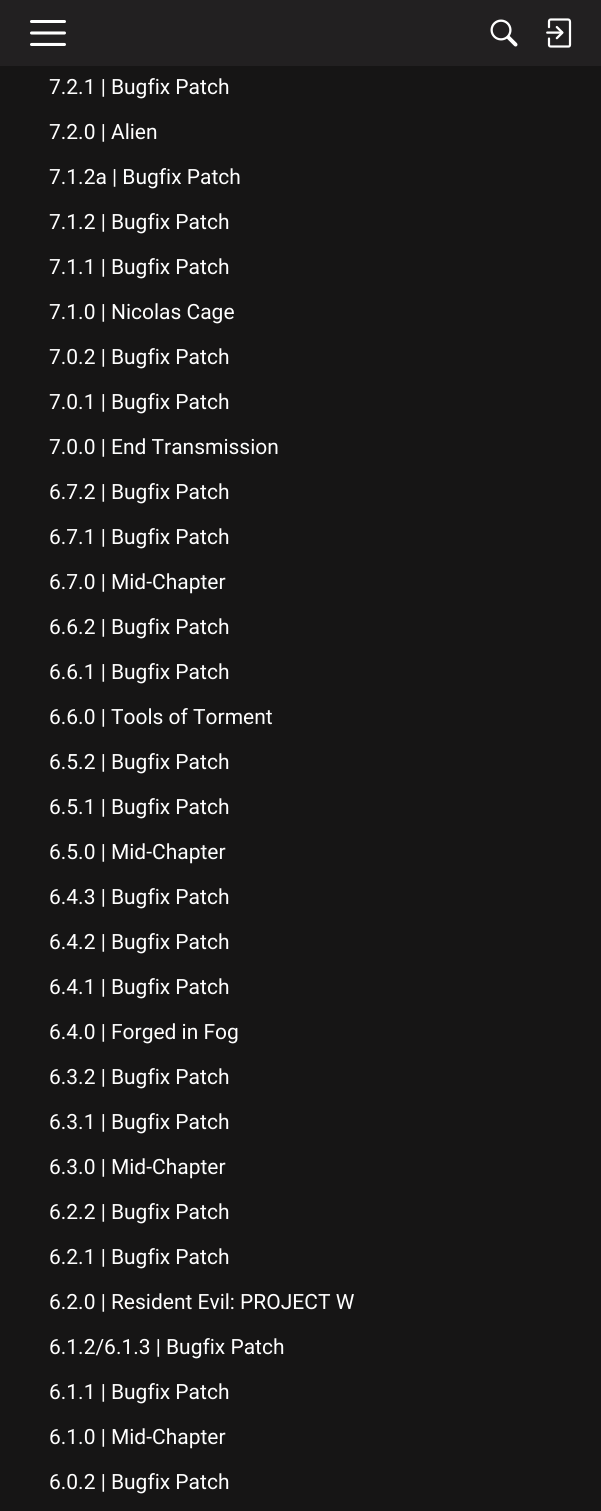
import math
import cairo



def draw_image(context, path, x, y, w, h):
    context.save()
    context.set_source_surface(cairo.ImageSurface.create_from_png(path), x, y)
    context.rectangle(x, y, w, h)
    context.fill()
    context.restore()


def draw(context):
    context.set_source_rgb(22 / 255, 21 / 255, 21 / 255)
    context.paint()
    context.set_source_rgb(34 / 255, 32 / 255, 33 / 255)
    context.rectangle(0, 0, 601, 66)
    context.fill()
    draw_image(context, "images/1.png", 30, 20, 36, 26)
    draw_image(context, "images/2.png", 490, 19, 28, 28)
    draw_image(context, "images/3.png", 546, 18, 26, 30)
    context.select_font_face("Roboto")
    context.set_font_size(21)
    context.set_source_rgb(1, 1, 1)
    context.move_to(49, 94)
    context.show_text("7.2.1 | Bugfix Patch")
    context.move_to(49, 139)
    context.show_text("7.2.0 | Alien")
    context.move_to(49, 184)
    context.show_text("7.1.2a | Bugfix Patch")
    context.move_to(49, 229)
    context.show_text("7.1.2 | Bugfix Patch")
    context.move_to(49, 274)
    context.show_text("7.1.1 | Bugfix Patch")
    context.move_to(49, 319)
    context.show_text("7.1.0 | Nicolas Cage")
    context.move_to(49, 364)
    context.show_text("7.0.2 | Bugfix Patch")
    context.move_to(49, 409)
    context.show_text("7.0.1 | Bugfix Patch")
    context.move_to(49, 454)
    context.show_text("7.0.0 | End Transmission")
    context.move_to(49, 499)
    context.show_text("6.7.2 | Bugfix Patch")
    context.move_to(49, 544)
    context.show_text("6.7.1 | Bugfix Patch")
    context.move_to(49, 589)
    context.show_text("6.7.0 | Mid-Chapter")
    context.move_to(49, 634)
    context.show_text("6.6.2 | Bugfix Patch")
    context.move_to(49, 679)
    context.show_text("6.6.1 | Bugfix Patch")
    context.move_to(49, 724)
    context.show_text("6.6.0 | Tools of Torment")
    context.move_to(49, 769)
    context.show_text("6.5.2 | Bugfix Patch")
    context.move_to(49, 814)
    context.show_text("6.5.1 | Bugfix Patch")
    context.move_to(49, 859)
    context.show_text("6.5.0 | Mid-Chapter")
    context.move_to(49, 904)
    context.show_text("6.4.3 | Bugfix Patch")
    context.move_to(49, 949)
    context.show_text("6.4.2 | Bugfix Patch")
    context.move_to(49, 994)
    context.show_text("6.4.1 | Bugfix Patch")
    context.move_to(49, 1039)
    context.show_text("6.4.0 | Forged in Fog")
    context.move_to(49, 1084)
    context.show_text("6.3.2 | Bugfix Patch")
    context.move_to(49, 1129)
    context.show_text("6.3.1 | Bugfix Patch")
    context.move_to(49, 1174)
    context.show_text("6.3.0 | Mid-Chapter")
    context.move_to(49, 1219)
    context.show_text("6.2.2 | Bugfix Patch")
    context.move_to(49, 1264)
    context.show_text("6.2.1 | Bugfix Patch")
    context.move_to(49, 1309)
    context.show_text("6.2.0 | Resident Evil: PROJECT W")
    context.move_to(49, 1354)
    context.show_text("6.1.2/6.1.3 | Bugfix Patch")
    context.move_to(49, 1399)
    context.show_text("6.1.1 | Bugfix Patch")
    context.move_to(49, 1444)
    context.show_text("6.1.0 | Mid-Chapter")
    context.move_to(49, 1489)
    context.show_text("6.0.2 | Bugfix Patch")


surface = cairo.ImageSurface(cairo.Format.RGB24, 601, 1511)
context = cairo.Context(surface)
options = cairo.FontOptions()
options.set_hint_metrics(cairo.HintMetrics.OFF)
options.set_hint_style(cairo.HintStyle.NONE)
context.set_font_options(options)
context.set_miter_limit(4)
draw(context)
surface.write_to_png("out.png")
